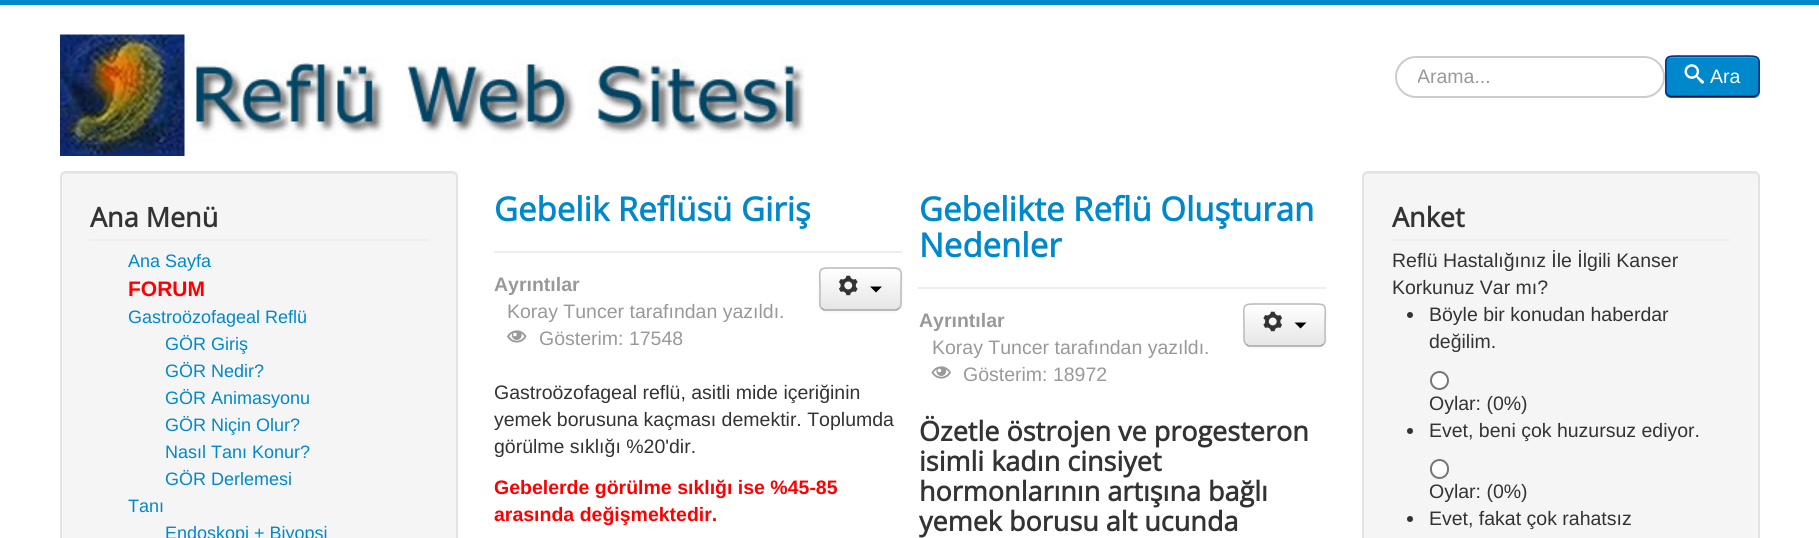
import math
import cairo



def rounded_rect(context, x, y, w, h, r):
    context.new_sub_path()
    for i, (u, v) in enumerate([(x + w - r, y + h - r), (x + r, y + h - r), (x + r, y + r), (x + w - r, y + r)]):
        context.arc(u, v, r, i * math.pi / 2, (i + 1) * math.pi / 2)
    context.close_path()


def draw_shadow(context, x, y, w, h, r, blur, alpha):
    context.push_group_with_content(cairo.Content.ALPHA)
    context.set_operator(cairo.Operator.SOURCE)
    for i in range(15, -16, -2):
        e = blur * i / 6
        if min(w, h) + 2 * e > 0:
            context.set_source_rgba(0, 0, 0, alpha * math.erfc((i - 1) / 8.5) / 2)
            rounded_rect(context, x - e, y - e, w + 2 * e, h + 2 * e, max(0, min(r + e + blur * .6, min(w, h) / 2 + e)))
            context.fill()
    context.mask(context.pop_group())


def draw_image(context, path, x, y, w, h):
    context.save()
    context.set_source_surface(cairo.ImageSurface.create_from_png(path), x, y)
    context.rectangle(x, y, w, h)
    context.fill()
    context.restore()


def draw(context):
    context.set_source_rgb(1, 1, 1)
    context.paint()
    context.set_source_rgb(0, 136 / 255, 204 / 255)
    context.rectangle(0, 0, 1819, 5)
    context.fill()
    draw_image(context, "images/1.png", 60, 34, 745, 122)
    rounded_rect(context, 1396, 57, 268, 40, 20)
    context.set_source_rgb(204 / 255, 204 / 255, 204 / 255)
    context.stroke()
    context.set_source_rgb(0, 0, 0)
    draw_shadow(context, 1665, 57, 95, 42, 6, 1.5, 0.05)
    context.set_source_rgb(0, 136 / 255, 204 / 255)
    rounded_rect(context, 1665, 56, 95, 42, 6)
    context.fill()
    context.set_source_rgb(51 / 255, 160 / 255, 214 / 255)
    context.new_path()
    context.move_to(1671, 58)
    context.line_to(1754, 58)
    context.curve_to(1756, 58, 1758, 61, 1758, 63)
    context.line_to(1758, 62)
    context.curve_to(1758, 59, 1756, 57, 1753, 57)
    context.line_to(1672, 57)
    context.curve_to(1670, 57, 1668, 58, 1667, 60)
    context.curve_to(1668, 59, 1670, 58, 1671, 58)
    context.close_path()
    context.fill()
    context.new_path()
    context.move_to(1757, 95)
    context.line_to(1754, 96.5)
    context.line_to(1670.5, 96.5)
    context.line_to(1667.5, 95)
    context.set_source_rgb(0, 22 / 255, 65 / 255)
    context.set_line_width(1.5)
    context.stroke()
    context.new_path()
    context.move_to(1667.5, 95)
    context.curve_to(1665, 93, 1666, 89.5, 1666, 86.5)
    context.line_to(1666, 76.5)
    context.curve_to(1666, 54.5, 1662.5, 56, 1685, 56)
    context.line_to(1740, 56)
    context.curve_to(1762, 56, 1759, 54.5, 1759, 76.5)
    context.line_to(1759, 86.5)
    context.curve_to(1759, 89.5, 1759.5, 93, 1757, 95)
    context.set_source_rgb(0, 47 / 255, 141 / 255)
    context.stroke()
    draw_image(context, "images/2.png", 1684, 64, 20, 20)
    context.set_source_rgb(245 / 255, 245 / 255, 245 / 255)
    rounded_rect(context, 60, 171, 398, 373, 6)
    context.fill()
    context.set_source_rgb(233 / 255, 233 / 255, 233 / 255)
    context.new_path()
    context.move_to(66, 174)
    context.line_to(452, 174)
    context.curve_to(454, 174, 456, 176, 456, 178)
    context.curve_to(456, 175, 454, 173, 451, 173)
    context.line_to(67, 173)
    context.curve_to(64, 173, 62, 175, 62, 178)
    context.curve_to(62, 176, 64, 174, 66, 174)
    context.close_path()
    context.fill()
    rounded_rect(context, 61, 172, 396, 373, 5)
    context.set_source_rgb(227 / 255, 227 / 255, 227 / 255)
    context.set_line_width(2)
    context.stroke()
    context.set_source_rgb(238 / 255, 238 / 255, 238 / 255)
    context.rectangle(90, 239, 338, 2)
    context.fill()
    context.rectangle(494, 251, 408, 2)
    context.fill()
    draw_image(context, "images/3.png", 507, 330, 20, 13)
    context.set_source_rgb(0, 0, 0)
    draw_shadow(context, 819, 269, 83, 43, 6, 1.5, 0.05)
    context.set_source_rgb(245 / 255, 245 / 255, 245 / 255)
    rounded_rect(context, 819, 267, 83, 44, 6)
    context.fill()
    context.save()
    rounded_rect(context, 819, 267, 83, 44, 6)
    context.clip()
    gradient = cairo.LinearGradient(860, 269, 860, 309)
    gradient.add_color_stop_rgba(0, 1, 1, 1, 1)
    gradient.add_color_stop_rgba(1, 230 / 255, 230 / 255, 230 / 255, 1)
    context.set_source(gradient)
    context.rectangle(819, 269, 83, 40)
    context.fill()
    context.restore()
    context.new_path()
    context.move_to(899, 308)
    context.curve_to(898, 309, 897, 310, 895.5, 310)
    context.line_to(825, 310)
    context.curve_to(823.5, 310, 822.5, 309, 821.5, 308)
    context.set_source_rgb(162 / 255, 162 / 255, 162 / 255)
    context.set_line_width(1.5)
    context.stroke()
    context.new_path()
    context.move_to(821.5, 308)
    context.curve_to(819, 306, 820, 302, 820, 299)
    context.line_to(820, 289)
    context.curve_to(820, 267, 816, 268, 837, 268)
    context.line_to(884, 268)
    context.curve_to(904.5, 268, 901, 267, 901, 289)
    context.line_to(901, 299)
    context.curve_to(901, 302, 901.5, 306, 899, 308)
    context.set_source_rgb(187 / 255, 187 / 255, 187 / 255)
    context.stroke()
    draw_image(context, "images/4.png", 838, 275, 20, 21)
    context.set_source_rgb(0, 0, 0)
    context.new_path()
    context.move_to(870, 286.5)
    context.line_to(882, 286.5)
    context.line_to(876, 292.5)
    context.close_path()
    context.fill()
    context.set_source_rgb(238 / 255, 238 / 255, 238 / 255)
    context.rectangle(918, 287, 408, 2)
    context.fill()
    draw_image(context, "images/5.png", 931, 366, 20, 13)
    context.set_source_rgb(0, 0, 0)
    draw_shadow(context, 1244, 305, 82, 43, 6, 1.5, 0.05)
    context.set_source_rgb(245 / 255, 245 / 255, 245 / 255)
    rounded_rect(context, 1244, 303, 82, 44, 6)
    context.fill()
    context.save()
    rounded_rect(context, 1244, 303, 82, 44, 6)
    context.clip()
    gradient = cairo.LinearGradient(1285, 305, 1285, 345)
    gradient.add_color_stop_rgba(0, 1, 1, 1, 1)
    gradient.add_color_stop_rgba(1, 230 / 255, 230 / 255, 230 / 255, 1)
    context.set_source(gradient)
    context.rectangle(1244, 305, 82, 40)
    context.fill()
    context.restore()
    context.set_source_rgba(1, 1, 1, 0.2)
    context.new_path()
    context.move_to(1250, 306)
    context.line_to(1320, 306)
    context.curve_to(1326, 306, 1324, 318, 1324, 321)
    context.line_to(1324, 343)
    context.curve_to(1325, 342, 1325, 341, 1325, 340)
    context.line_to(1325, 310)
    context.curve_to(1325, 307, 1323, 305, 1320, 305)
    context.line_to(1250, 305)
    context.curve_to(1247, 305, 1245, 307, 1245, 310)
    context.curve_to(1245, 308, 1247, 306, 1250, 306)
    context.close_path()
    context.fill()
    context.new_path()
    context.move_to(1323.5, 344)
    context.curve_to(1322.5, 345, 1321.5, 346, 1320, 346)
    context.line_to(1249.5, 346)
    context.curve_to(1248, 346, 1247, 345, 1246, 344)
    context.set_source_rgb(162 / 255, 162 / 255, 162 / 255)
    context.stroke()
    context.new_path()
    context.move_to(1246, 344)
    context.curve_to(1243.5, 342, 1244, 338, 1244, 335)
    context.line_to(1244, 325)
    context.curve_to(1244, 303, 1240.5, 304, 1261, 304)
    context.line_to(1308, 304)
    context.curve_to(1329, 304, 1325, 303, 1325, 325)
    context.line_to(1325, 335)
    context.curve_to(1325, 338, 1326, 342, 1323.5, 344)
    context.set_source_rgb(187 / 255, 187 / 255, 187 / 255)
    context.stroke()
    draw_image(context, "images/6.png", 1263, 311, 20, 21)
    context.set_source_rgb(0, 0, 0)
    context.new_path()
    context.move_to(1294.5, 322.5)
    context.line_to(1306.5, 322.5)
    context.line_to(1300.5, 328.5)
    context.close_path()
    context.fill()
    context.set_source_rgb(245 / 255, 245 / 255, 245 / 255)
    rounded_rect(context, 1362, 171, 398, 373, 6)
    context.fill()
    context.set_source_rgb(233 / 255, 233 / 255, 233 / 255)
    context.new_path()
    context.move_to(1368, 174)
    context.line_to(1754, 174)
    context.curve_to(1756, 174, 1758, 176, 1758, 178)
    context.curve_to(1758, 175, 1756, 173, 1753, 173)
    context.line_to(1369, 173)
    context.curve_to(1366, 173, 1364, 175, 1364, 178)
    context.curve_to(1364, 176, 1366, 174, 1368, 174)
    context.close_path()
    context.fill()
    rounded_rect(context, 1363, 172, 396, 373, 5)
    context.set_source_rgb(227 / 255, 227 / 255, 227 / 255)
    context.set_line_width(2)
    context.stroke()
    context.set_source_rgb(238 / 255, 238 / 255, 238 / 255)
    context.rectangle(1392, 239, 338, 2)
    context.fill()
    context.set_source_rgb(51 / 255, 51 / 255, 51 / 255)
    context.arc(1410, 315, 3, 0, 2 * math.pi)
    context.fill()
    context.set_source_rgb(1, 1, 1)
    context.arc(1439.5, 380.5, 8.5, 0, 2 * math.pi)
    context.fill_preserve()
    context.set_source_rgb(118 / 255, 118 / 255, 118 / 255)
    context.stroke()
    context.set_source_rgb(51 / 255, 51 / 255, 51 / 255)
    context.arc(1410, 431, 3, 0, 2 * math.pi)
    context.fill()
    context.set_source_rgb(1, 1, 1)
    rounded_rect(context, 1431, 460, 17, 18, 8.5)
    context.fill_preserve()
    context.set_source_rgb(118 / 255, 118 / 255, 118 / 255)
    context.stroke()
    context.set_source_rgb(51 / 255, 51 / 255, 51 / 255)
    context.arc(1410, 519, 3, 0, 2 * math.pi)
    context.fill()
    context.save()
    context.rectangle(1418, 65, 225, 22)
    context.clip()
    context.select_font_face("Liberation Sans")
    context.set_font_size(19.5)
    context.set_source_rgb(153 / 255, 153 / 255, 153 / 255)
    context.move_to(1417, 83)
    context.show_text("Arama...")
    context.restore()
    context.select_font_face("Liberation Sans")
    context.set_font_size(19.5)
    context.set_source_rgb(1, 1, 1)
    context.move_to(1710, 83)
    context.show_text("Ara")
    context.select_font_face("Open Sans", cairo.FontSlant.NORMAL, cairo.FontWeight.BOLD)
    context.set_font_size(27)
    context.set_source_rgb(51 / 255, 51 / 255, 51 / 255)
    context.move_to(90, 227)
    context.show_text("Ana Menü")
    context.select_font_face("Liberation Sans")
    context.set_font_size(18)
    context.set_source_rgb(0, 136 / 255, 204 / 255)
    context.move_to(128, 267)
    context.show_text("Ana Sayfa")
    context.select_font_face("Liberation Sans", cairo.FontSlant.NORMAL, cairo.FontWeight.BOLD)
    context.set_font_size(21)
    context.set_source_rgb(1, 0, 0)
    context.move_to(128, 296)
    context.show_text("FORUM")
    context.select_font_face("Liberation Sans")
    context.set_font_size(18)
    context.set_source_rgb(0, 136 / 255, 204 / 255)
    context.move_to(128, 323)
    context.show_text("Gastroözofageal Reflü")
    context.move_to(165, 350)
    context.show_text("GÖR Giriş")
    context.move_to(165, 377)
    context.show_text("GÖR Nedir?")
    context.move_to(165, 404)
    context.show_text("GÖR Animasyonu")
    context.move_to(165, 431)
    context.show_text("GÖR Niçin Olur?")
    context.move_to(165, 458)
    context.show_text("Nasıl Tanı Konur?")
    context.move_to(165, 485)
    context.show_text("GÖR Derlemesi")
    context.move_to(128, 512)
    context.show_text("Tanı")
    context.move_to(165, 539)
    context.show_text("Endoskopi + Biyopsi")
    context.select_font_face("Open Sans", cairo.FontSlant.NORMAL, cairo.FontWeight.BOLD)
    context.set_font_size(33)
    context.move_to(494, 221)
    context.show_text("Gebelik Reflüsü Giriş")
    context.select_font_face("Liberation Sans", cairo.FontSlant.NORMAL, cairo.FontWeight.BOLD)
    context.set_font_size(19.5)
    context.set_source_rgb(153 / 255, 153 / 255, 153 / 255)
    context.move_to(494, 291)
    context.show_text("Ayrıntılar")
    context.select_font_face("Liberation Sans")
    context.move_to(507, 318)
    context.show_text("Koray Tuncer tarafından yazıldı.")
    context.move_to(539, 345)
    context.show_text("Gösterim: 17548")
    context.set_source_rgb(51 / 255, 51 / 255, 51 / 255)
    context.move_to(494, 399)
    context.show_text("Gastroözofageal reflü, asitli mide içeriğinin")
    context.move_to(494, 426)
    context.show_text("yemek borusuna kaçması demektir. Toplumda")
    context.move_to(494, 453)
    context.show_text("görülme sıklığı %20'dir.")
    context.select_font_face("Liberation Sans", cairo.FontSlant.NORMAL, cairo.FontWeight.BOLD)
    context.set_source_rgb(1, 0, 0)
    context.move_to(494, 494)
    context.show_text("Gebelerde görülme sıklığı ise %45-85")
    context.move_to(494, 521)
    context.show_text("arasında değişmektedir.")
    context.select_font_face("Open Sans", cairo.FontSlant.NORMAL, cairo.FontWeight.BOLD)
    context.set_font_size(33)
    context.set_source_rgb(0, 136 / 255, 204 / 255)
    context.move_to(919, 221)
    context.show_text("Gebelikte Reflü Oluşturan")
    context.move_to(919, 257)
    context.show_text("Nedenler")
    context.select_font_face("Liberation Sans", cairo.FontSlant.NORMAL, cairo.FontWeight.BOLD)
    context.set_font_size(19.5)
    context.set_source_rgb(153 / 255, 153 / 255, 153 / 255)
    context.move_to(919, 327)
    context.show_text("Ayrıntılar")
    context.select_font_face("Liberation Sans")
    context.move_to(932, 354)
    context.show_text("Koray Tuncer tarafından yazıldı.")
    context.move_to(963, 381)
    context.show_text("Gösterim: 18972")
    context.select_font_face("Open Sans", cairo.FontSlant.NORMAL, cairo.FontWeight.BOLD)
    context.set_font_size(27)
    context.set_source_rgb(51 / 255, 51 / 255, 51 / 255)
    context.move_to(919, 441)
    context.show_text("Özetle östrojen ve progesteron")
    context.move_to(919, 471)
    context.show_text("isimli kadın cinsiyet")
    context.move_to(919, 501)
    context.show_text("hormonlarının artışına bağlı")
    context.move_to(919, 531)
    context.show_text("yemek borusu alt ucunda")
    context.move_to(1392, 227)
    context.show_text("Anket")
    context.select_font_face("Liberation Sans")
    context.set_font_size(19.5)
    context.move_to(1392, 267)
    context.show_text("Reflü Hastalığınız İle İlgili Kanser")
    context.move_to(1392, 294)
    context.show_text("Korkunuz Var mı?")
    context.move_to(1429, 321)
    context.show_text("Böyle bir konudan haberdar")
    context.move_to(1429, 348)
    context.show_text("değilim.")
    context.move_to(1429, 410)
    context.show_text("Oylar: (0%)")
    context.move_to(1429, 437)
    context.show_text("Evet, beni çok huzursuz ediyor.")
    context.move_to(1429, 498)
    context.show_text("Oylar: (0%)")
    context.move_to(1429, 525)
    context.show_text("Evet, fakat çok rahatsız")


surface = cairo.ImageSurface(cairo.Format.RGB24, 1819, 538)
context = cairo.Context(surface)
options = cairo.FontOptions()
options.set_hint_metrics(cairo.HintMetrics.OFF)
options.set_hint_style(cairo.HintStyle.NONE)
context.set_font_options(options)
context.set_miter_limit(4)
draw(context)
surface.write_to_png("out.png")
